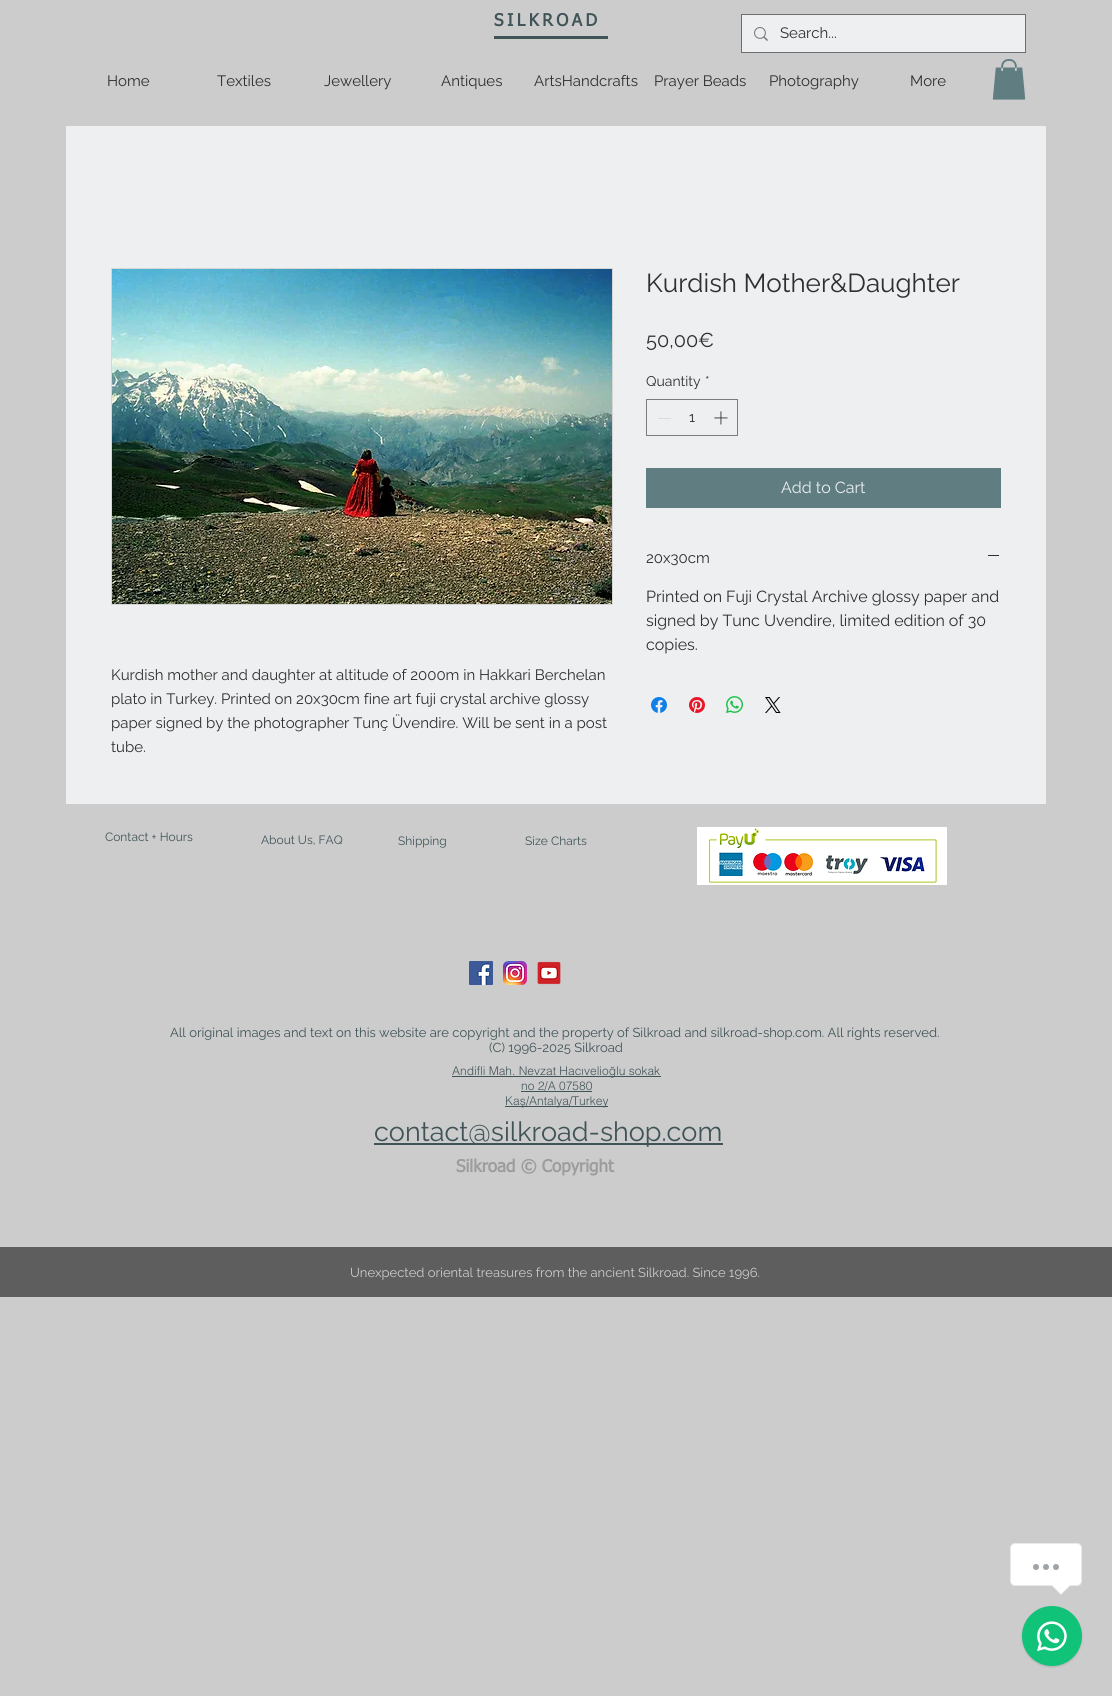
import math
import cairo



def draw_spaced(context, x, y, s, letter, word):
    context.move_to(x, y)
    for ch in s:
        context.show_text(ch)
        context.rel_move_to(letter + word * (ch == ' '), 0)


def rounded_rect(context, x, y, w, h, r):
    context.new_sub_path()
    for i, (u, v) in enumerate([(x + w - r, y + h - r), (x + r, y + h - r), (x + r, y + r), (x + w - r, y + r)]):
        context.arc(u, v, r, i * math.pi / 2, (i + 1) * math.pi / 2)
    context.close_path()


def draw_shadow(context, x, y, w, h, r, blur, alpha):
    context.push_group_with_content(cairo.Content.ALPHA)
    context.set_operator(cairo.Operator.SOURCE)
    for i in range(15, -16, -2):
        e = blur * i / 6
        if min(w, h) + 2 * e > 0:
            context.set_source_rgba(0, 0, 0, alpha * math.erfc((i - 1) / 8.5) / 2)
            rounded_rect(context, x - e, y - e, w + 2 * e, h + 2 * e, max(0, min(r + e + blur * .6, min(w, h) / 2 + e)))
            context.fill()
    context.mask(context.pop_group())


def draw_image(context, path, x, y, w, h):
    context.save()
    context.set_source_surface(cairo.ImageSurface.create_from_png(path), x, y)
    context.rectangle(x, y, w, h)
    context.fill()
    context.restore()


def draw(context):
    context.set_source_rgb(204 / 255, 204 / 255, 204 / 255)
    context.paint()
    context.set_source_rgb(64 / 255, 83 / 255, 87 / 255)
    context.rectangle(494, 36, 114, 3)
    context.fill()
    context.rectangle(741.5, 14.5, 284, 38)
    context.set_source_rgb(110 / 255, 110 / 255, 110 / 255)
    context.set_line_width(1)
    context.stroke()
    context.set_source_rgb(237 / 255, 239 / 255, 240 / 255)
    context.rectangle(742, 15, 283, 37)
    context.fill()
    draw_image(context, "images/1.png", 754, 27, 14, 14)
    draw_image(context, "images/2.png", 992, 59, 34, 41)
    context.rectangle(66, 126, 980, 678)
    context.fill()
    context.rectangle(646.5, 399.5, 91, 36)
    context.set_source_rgb(123 / 255, 124 / 255, 124 / 255)
    context.stroke()
    context.set_source_rgb(218 / 255, 219 / 255, 220 / 255)
    context.rectangle(658, 418, 13, 1)
    context.fill()
    draw_image(context, "images/3.png", 714, 411, 14, 14)
    context.set_source_rgb(96 / 255, 125 / 255, 130 / 255)
    context.rectangle(646, 468, 355, 40)
    context.fill()
    context.set_source_rgb(47 / 255, 47 / 255, 47 / 255)
    context.rectangle(988, 555, 11, 1)
    context.fill()
    draw_image(context, "images/4.png", 651, 697, 16, 16)
    draw_image(context, "images/5.png", 689, 697, 16, 16)
    draw_image(context, "images/6.png", 726, 696, 17, 17)
    draw_image(context, "images/7.png", 765, 697, 16, 16)
    context.rectangle(111.5, 268.5, 501, 336)
    context.set_source_rgb(214 / 255, 214 / 255, 214 / 255)
    context.stroke()
    draw_image(context, "images/8.png", 112, 269, 500, 335)
    draw_image(context, "images/9.png", 697, 827, 250, 58)
    draw_image(context, "images/10.png", 469, 961, 24, 24)
    draw_image(context, "images/11.png", 503, 961, 24, 24)
    draw_image(context, "images/12.png", 537, 961, 24, 24)
    context.set_source_rgb(64 / 255, 83 / 255, 87 / 255)
    context.rectangle(452, 1076, 209, 1)
    context.fill()
    context.rectangle(521, 1091, 71, 1)
    context.fill()
    context.rectangle(505, 1106, 103, 1)
    context.fill()
    context.rectangle(374, 1143, 349, 2)
    context.fill()
    context.set_source_rgb(94 / 255, 94 / 255, 94 / 255)
    context.rectangle(0, 1247, 1112, 50)
    context.fill()
    context.set_source_rgb(1, 1, 1)
    rounded_rect(context, 1010.5, 1543.5, 71, 42, 4.5)
    context.fill_preserve()
    context.set_source_rgb(233 / 255, 233 / 255, 233 / 255)
    context.stroke()
    context.set_source_rgb(159 / 255, 164 / 255, 168 / 255)
    context.arc(1036, 1567, 3, 0, 2 * math.pi)
    context.fill()
    context.arc(1046, 1567, 3, 0, 2 * math.pi)
    context.fill()
    context.arc(1056, 1567, 3, 0, 2 * math.pi)
    context.fill()
    context.set_source_rgb(233 / 255, 233 / 255, 233 / 255)
    context.new_path()
    context.move_to(1051, 1585)
    context.line_to(1071, 1585)
    context.line_to(1061, 1595)
    context.close_path()
    context.fill()
    context.set_source_rgb(1, 1, 1)
    context.new_path()
    context.move_to(1052, 1585)
    context.line_to(1070, 1585)
    context.line_to(1061, 1594)
    context.close_path()
    context.fill()
    context.set_source_rgb(0, 0, 0)
    draw_shadow(context, 1022, 1607, 60, 60, 30, 1, 0.15)
    context.set_source_rgb(16 / 255, 195 / 255, 121 / 255)
    context.arc(1052, 1636, 30, 0, 2 * math.pi)
    context.fill()
    draw_image(context, "images/13.png", 1037, 1621, 30, 31)
    context.select_font_face("tahoma", cairo.FontSlant.NORMAL, cairo.FontWeight.BOLD)
    context.set_font_size(17)
    context.set_source_rgb(64 / 255, 83 / 255, 87 / 255)
    draw_spaced(context, 494, 26, "SILKROAD", 3.5, 0)
    context.select_font_face("Raleway")
    context.set_font_size(15)
    context.set_source_rgb(47 / 255, 47 / 255, 47 / 255)
    context.move_to(780, 38)
    context.show_text("Search...")
    context.move_to(107, 86)
    context.show_text("Home")
    context.move_to(217, 86)
    context.show_text("Textiles")
    context.move_to(324, 86)
    context.show_text("Jewellery")
    context.move_to(441, 86)
    context.show_text("Antiques")
    context.move_to(534, 86)
    context.show_text("ArtsHandcrafts")
    context.move_to(654, 86)
    context.show_text("Prayer Beads")
    context.move_to(769, 86)
    context.show_text("Photography")
    context.move_to(910, 86)
    context.show_text("More")
    context.set_font_size(26)
    context.move_to(646, 292)
    context.show_text("Kurdish Mother&Daughter")
    context.set_font_size(20)
    context.move_to(646, 347)
    context.show_text("50,00€")
    context.set_font_size(14)
    context.move_to(646, 386)
    context.show_text("Quantity")
    context.move_to(705, 386)
    context.show_text("*")
    context.move_to(689, 422)
    context.show_text("1")
    context.set_font_size(16)
    context.set_source_rgb(237 / 255, 239 / 255, 240 / 255)
    context.move_to(781, 493)
    context.show_text("Add to Cart")
    context.set_font_size(15)
    context.set_source_rgb(47 / 255, 47 / 255, 47 / 255)
    context.move_to(646, 563)
    context.show_text("20x30cm")
    context.set_font_size(16)
    context.move_to(646, 602)
    context.show_text("Printed on Fuji Crystal Archive glossy paper and")
    context.move_to(646, 626)
    context.show_text("signed by Tunc Uvendire, limited edition of 30")
    context.move_to(646, 650)
    context.show_text("copies.")
    context.set_font_size(15)
    context.move_to(111, 680)
    context.show_text("Kurdish mother and daughter at altitude of 2000m in Hakkari Berchelan")
    context.move_to(111, 704)
    context.show_text("plato in Turkey. Printed on 20x30cm fine art fuji crystal archive glossy")
    context.move_to(111, 728)
    context.show_text("paper signed by the photographer Tunç Üvendire. Will be sent in a post")
    context.move_to(111, 752)
    context.show_text("tube.")
    context.set_font_size(12)
    context.set_source_rgb(64 / 255, 83 / 255, 87 / 255)
    context.move_to(105, 841)
    context.show_text("Contact + Hours")
    context.move_to(261, 844)
    context.show_text("About Us, FAQ")
    context.move_to(398, 845)
    context.show_text("Shipping")
    context.move_to(525, 845)
    context.show_text("Size Charts")
    context.set_font_size(13)
    context.move_to(170, 1037)
    context.show_text("All original images and text on this website are copyright and the property of Silkroad and silkroad-shop.com. All rights reserved.")
    context.move_to(489, 1052)
    context.show_text("(C) 1996-2025 Silkroad")
    context.select_font_face("helvetica Light")
    context.set_font_size(12)
    context.move_to(452, 1075)
    context.show_text("Andifli Mah. Nevzat Hacıvelioğlu sokak")
    context.move_to(521, 1090)
    context.show_text("no 2/A 07580")
    context.move_to(505, 1105)
    context.show_text("Kaş/Antalya/Turkey")
    context.select_font_face("Raleway")
    context.set_font_size(27)
    context.move_to(374, 1141)
    context.show_text("contact@silkroad-shop.com")
    context.select_font_face("tahoma", cairo.FontSlant.NORMAL, cairo.FontWeight.BOLD)
    context.set_font_size(17)
    context.set_source_rgb(156 / 255, 156 / 255, 156 / 255)
    context.move_to(456, 1172)
    context.show_text("Silkroad © Copyright")
    context.select_font_face("Raleway")
    context.set_font_size(13)
    context.set_source_rgb(204 / 255, 204 / 255, 204 / 255)
    context.move_to(350, 1277)
    context.show_text("Unexpected oriental treasures from the ancient Silkroad. Since 1996.")


surface = cairo.ImageSurface(cairo.Format.RGB24, 1112, 1696)
context = cairo.Context(surface)
options = cairo.FontOptions()
options.set_hint_metrics(cairo.HintMetrics.OFF)
options.set_hint_style(cairo.HintStyle.NONE)
context.set_font_options(options)
context.set_miter_limit(4)
draw(context)
surface.write_to_png("out.png")
